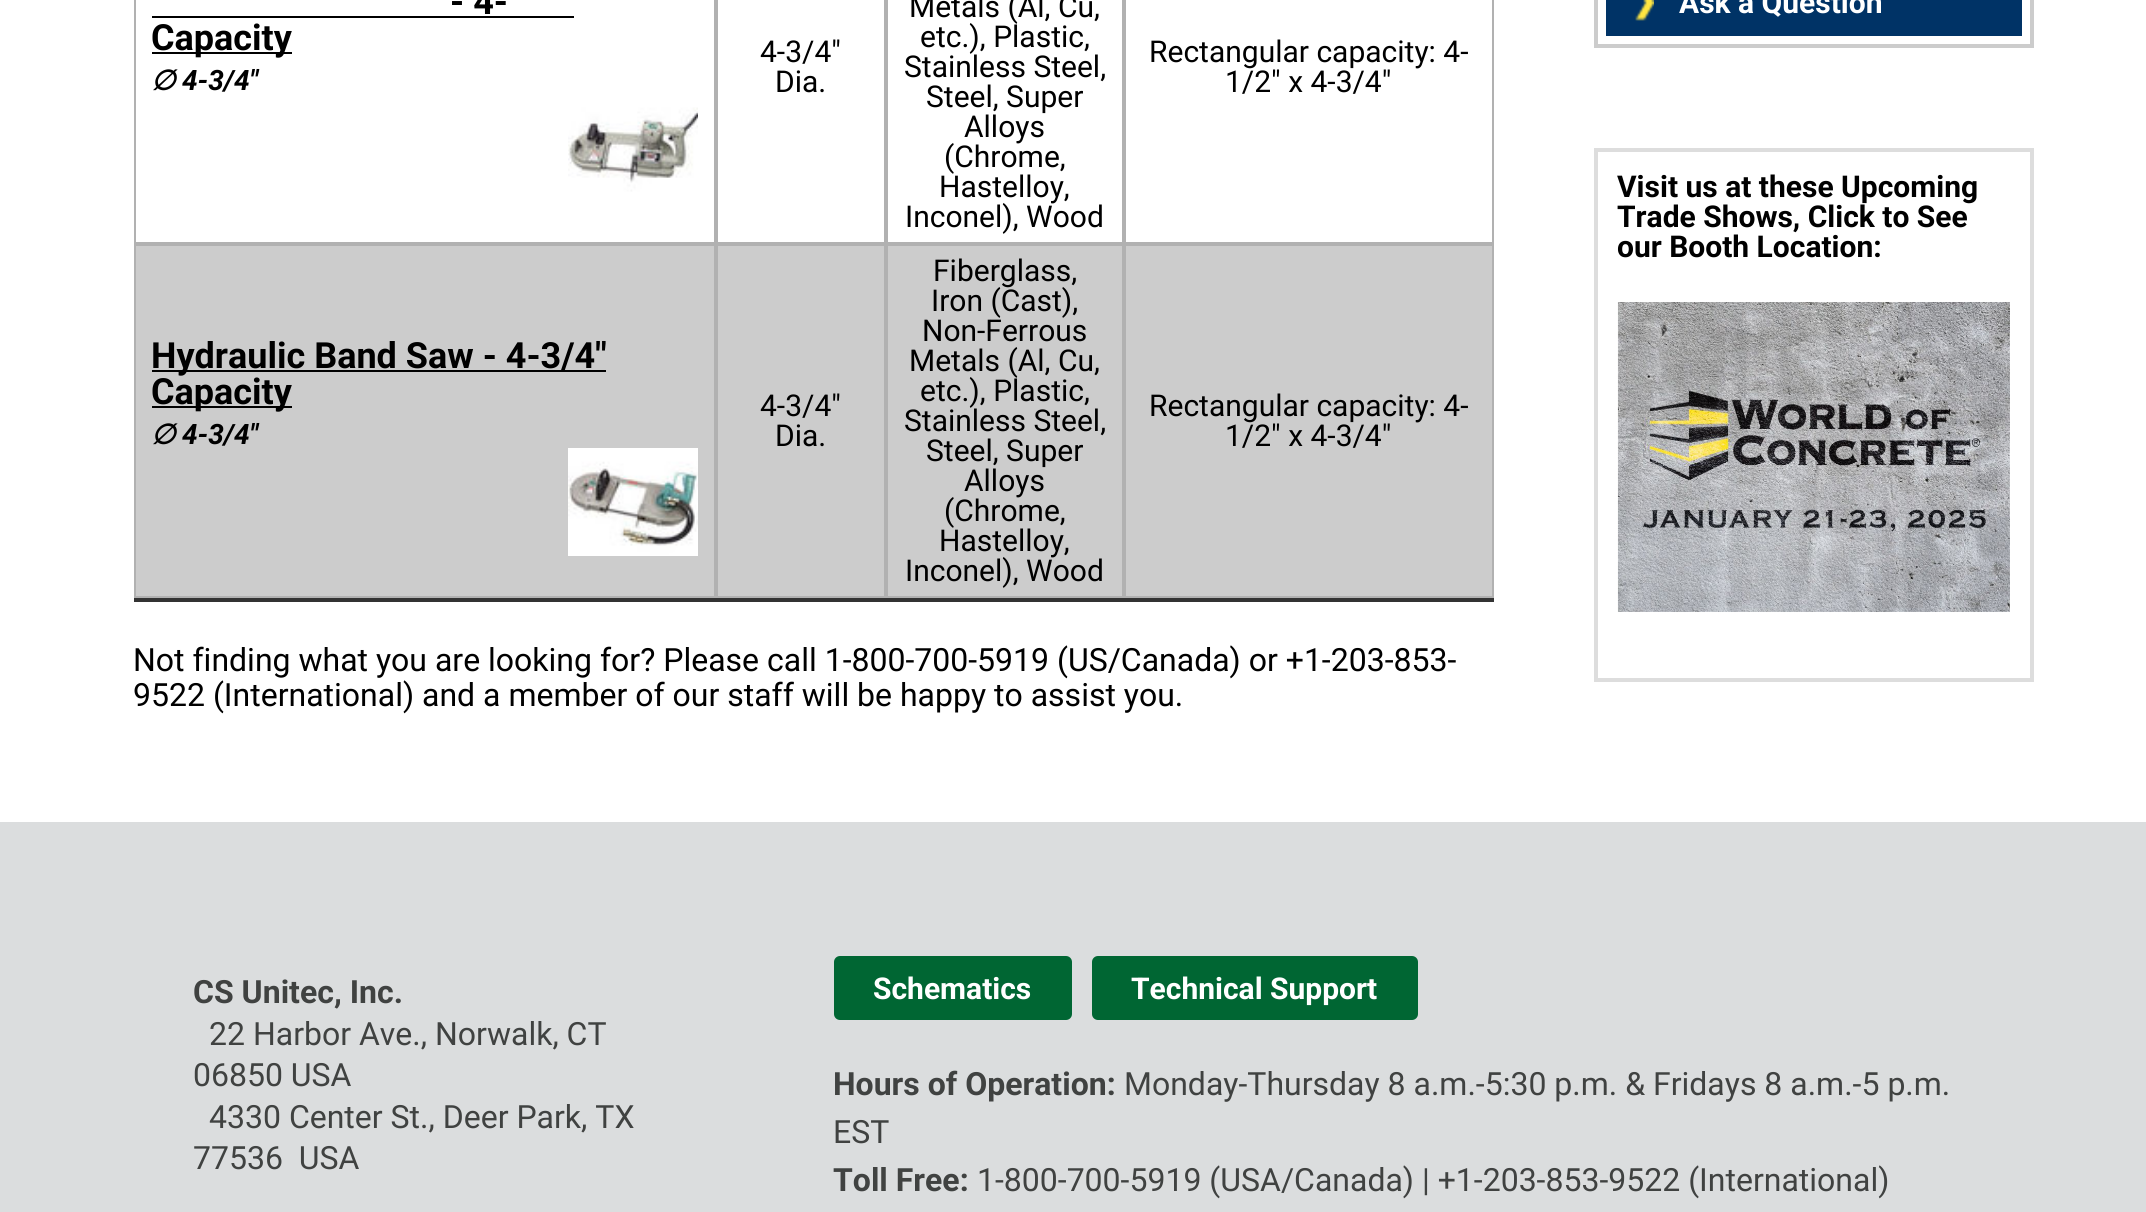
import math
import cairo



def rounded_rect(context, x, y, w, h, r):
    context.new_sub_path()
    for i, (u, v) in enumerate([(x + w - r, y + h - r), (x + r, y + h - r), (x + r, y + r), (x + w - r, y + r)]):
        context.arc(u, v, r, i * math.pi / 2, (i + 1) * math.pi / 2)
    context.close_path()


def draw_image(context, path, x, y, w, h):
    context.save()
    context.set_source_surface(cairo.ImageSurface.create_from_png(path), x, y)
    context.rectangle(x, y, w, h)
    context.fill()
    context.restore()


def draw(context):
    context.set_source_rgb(1, 1, 1)
    context.paint()
    context.set_source_rgb(51 / 255, 51 / 255, 51 / 255)
    context.rectangle(134, 598, 1360, 4)
    context.fill()
    context.rectangle(135, -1, 580, 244)
    context.set_source_rgb(177 / 255, 177 / 255, 177 / 255)
    context.stroke()
    context.set_source_rgb(0, 0, 0)
    context.rectangle(152, 16, 422, 2)
    context.fill()
    context.rectangle(152, 52, 140, 2)
    context.fill()
    draw_image(context, "images/1.png", 568, 107, 130, 85)
    context.rectangle(717, -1, 168, 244)
    context.set_source_rgb(177 / 255, 177 / 255, 177 / 255)
    context.stroke()
    context.rectangle(887, -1, 236, 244)
    context.stroke()
    context.rectangle(1125, -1, 368, 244)
    context.stroke()
    context.set_source_rgb(204 / 255, 204 / 255, 204 / 255)
    context.rectangle(135, 245, 580, 352)
    context.fill_preserve()
    context.set_source_rgb(177 / 255, 177 / 255, 177 / 255)
    context.stroke()
    context.set_source_rgb(0, 0, 0)
    context.rectangle(152, 370, 454, 2)
    context.fill()
    context.rectangle(152, 406, 140, 2)
    context.fill()
    draw_image(context, "images/2.png", 568, 448, 130, 108)
    context.set_source_rgb(204 / 255, 204 / 255, 204 / 255)
    context.rectangle(717, 245, 168, 352)
    context.fill_preserve()
    context.set_source_rgb(177 / 255, 177 / 255, 177 / 255)
    context.stroke()
    context.set_source_rgb(204 / 255, 204 / 255, 204 / 255)
    context.rectangle(887, 245, 236, 352)
    context.fill_preserve()
    context.set_source_rgb(177 / 255, 177 / 255, 177 / 255)
    context.stroke()
    context.set_source_rgb(204 / 255, 204 / 255, 204 / 255)
    context.rectangle(1125, 245, 368, 352)
    context.fill_preserve()
    context.set_source_rgb(177 / 255, 177 / 255, 177 / 255)
    context.stroke()
    context.rectangle(1596, -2, 436, 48)
    context.set_source_rgb(204 / 255, 204 / 255, 204 / 255)
    context.set_line_width(4)
    context.stroke()
    context.set_source_rgb(0, 51 / 255, 102 / 255)
    context.rectangle(1606, 0, 416, 36)
    context.fill()
    draw_image(context, "images/3.png", 1635, 0, 19, 21)
    context.rectangle(1596, 150, 436, 530)
    context.set_source_rgb(221 / 255, 221 / 255, 221 / 255)
    context.stroke()
    draw_image(context, "images/4.png", 1617, 302, 393, 310)
    context.set_source_rgb(219 / 255, 221 / 255, 222 / 255)
    context.rectangle(0, 822, 2146, 390)
    context.fill()
    context.set_source_rgb(0, 102 / 255, 51 / 255)
    rounded_rect(context, 834, 956, 238, 64, 6)
    context.fill()
    rounded_rect(context, 1092, 956, 326, 64, 6)
    context.fill()
    context.select_font_face("Roboto", cairo.FontSlant.NORMAL, cairo.FontWeight.BOLD)
    context.set_font_size(36)
    context.set_source_rgb(0, 0, 0)
    context.move_to(450, 14)
    context.show_text("- 4-")
    context.move_to(151, 50)
    context.show_text("Capacity")
    context.select_font_face("DejaVu Sans", cairo.FontSlant.ITALIC, cairo.FontWeight.BOLD)
    context.set_font_size(28)
    context.move_to(151, 90)
    context.show_text("∅")
    context.select_font_face("Roboto", cairo.FontSlant.ITALIC, cairo.FontWeight.BOLD)
    context.move_to(182, 90)
    context.show_text("4-3/4\"")
    context.select_font_face("Roboto")
    context.set_font_size(30)
    context.move_to(760, 62)
    context.show_text("4-3/4\"")
    context.move_to(775, 92)
    context.show_text("Dia.")
    context.move_to(909, 17)
    context.show_text("Metals (Al, Cu,")
    context.move_to(920, 47)
    context.show_text("etc.), Plastic,")
    context.move_to(904, 77)
    context.show_text("Stainless Steel,")
    context.move_to(926, 107)
    context.show_text("Steel, Super")
    context.move_to(964, 137)
    context.show_text("Alloys")
    context.move_to(944, 167)
    context.show_text("(Chrome,")
    context.move_to(939, 197)
    context.show_text("Hastelloy,")
    context.move_to(905, 227)
    context.show_text("Inconel), Wood")
    context.move_to(1149, 62)
    context.show_text("Rectangular capacity: 4-")
    context.move_to(1225, 92)
    context.show_text("1/2\" x 4-3/4\"")
    context.select_font_face("Roboto", cairo.FontSlant.NORMAL, cairo.FontWeight.BOLD)
    context.set_font_size(36)
    context.move_to(151, 368)
    context.show_text("Hydraulic Band Saw - 4-3/4\"")
    context.move_to(151, 404)
    context.show_text("Capacity")
    context.select_font_face("DejaVu Sans", cairo.FontSlant.ITALIC, cairo.FontWeight.BOLD)
    context.set_font_size(28)
    context.move_to(151, 444)
    context.show_text("∅")
    context.select_font_face("Roboto", cairo.FontSlant.ITALIC, cairo.FontWeight.BOLD)
    context.move_to(182, 444)
    context.show_text("4-3/4\"")
    context.select_font_face("Roboto")
    context.set_font_size(30)
    context.move_to(760, 416)
    context.show_text("4-3/4\"")
    context.move_to(775, 446)
    context.show_text("Dia.")
    context.move_to(933, 281)
    context.show_text("Fiberglass,")
    context.move_to(931, 311)
    context.show_text("Iron (Cast),")
    context.move_to(922, 341)
    context.show_text("Non-Ferrous")
    context.move_to(909, 371)
    context.show_text("Metals (Al, Cu,")
    context.move_to(920, 401)
    context.show_text("etc.), Plastic,")
    context.move_to(904, 431)
    context.show_text("Stainless Steel,")
    context.move_to(926, 461)
    context.show_text("Steel, Super")
    context.move_to(964, 491)
    context.show_text("Alloys")
    context.move_to(944, 521)
    context.show_text("(Chrome,")
    context.move_to(939, 551)
    context.show_text("Hastelloy,")
    context.move_to(905, 581)
    context.show_text("Inconel), Wood")
    context.move_to(1149, 416)
    context.show_text("Rectangular capacity: 4-")
    context.move_to(1225, 446)
    context.show_text("1/2\" x 4-3/4\"")
    context.set_font_size(32)
    context.move_to(133, 671)
    context.show_text("Not finding what you are looking for? Please call 1-800-700-5919 (US/Canada) or +1-203-853-")
    context.move_to(133, 706)
    context.show_text("9522 (International) and a member of our staff will be happy to assist you.")
    context.select_font_face("Roboto", cairo.FontSlant.NORMAL, cairo.FontWeight.BOLD)
    context.set_font_size(30)
    context.set_source_rgb(1, 1, 1)
    context.move_to(1679, 13)
    context.show_text("Ask a Question")
    context.set_source_rgb(0, 0, 0)
    context.move_to(1617, 197)
    context.show_text("Visit us at these Upcoming")
    context.move_to(1617, 227)
    context.show_text("Trade Shows, Click to See")
    context.move_to(1617, 257)
    context.show_text("our Booth Location:")
    context.set_font_size(32)
    context.set_source_rgb(64 / 255, 66 / 255, 65 / 255)
    context.move_to(193, 1003)
    context.show_text("CS Unitec, Inc.")
    context.select_font_face("Roboto")
    context.move_to(209, 1045)
    context.show_text("22 Harbor Ave., Norwalk, CT")
    context.move_to(193, 1086)
    context.show_text("06850 USA")
    context.move_to(209, 1128)
    context.show_text("4330 Center St., Deer Park, TX")
    context.move_to(193, 1169)
    context.show_text("77536  USA")
    context.select_font_face("Roboto", cairo.FontSlant.NORMAL, cairo.FontWeight.BOLD)
    context.set_font_size(30)
    context.set_source_rgb(1, 1, 1)
    context.move_to(873, 999)
    context.show_text("Schematics")
    context.move_to(1131, 999)
    context.show_text("Technical Support")
    context.set_font_size(32)
    context.set_source_rgb(64 / 255, 66 / 255, 65 / 255)
    context.move_to(833, 1095)
    context.show_text("Hours of Operation:")
    context.select_font_face("Roboto")
    context.move_to(1124, 1095)
    context.show_text("Monday-Thursday 8 a.m.-5:30 p.m. & Fridays 8 a.m.-5 p.m.")
    context.move_to(833, 1143)
    context.show_text("EST")
    context.select_font_face("Roboto", cairo.FontSlant.NORMAL, cairo.FontWeight.BOLD)
    context.move_to(833, 1191)
    context.show_text("Toll Free:")
    context.select_font_face("Roboto")
    context.move_to(977, 1191)
    context.show_text("1-800-700-5919 (USA/Canada) | +1-203-853-9522 (International)")


surface = cairo.ImageSurface(cairo.Format.RGB24, 2146, 1212)
context = cairo.Context(surface)
options = cairo.FontOptions()
options.set_hint_metrics(cairo.HintMetrics.OFF)
options.set_hint_style(cairo.HintStyle.NONE)
context.set_font_options(options)
context.set_miter_limit(4)
draw(context)
surface.write_to_png("out.png")
